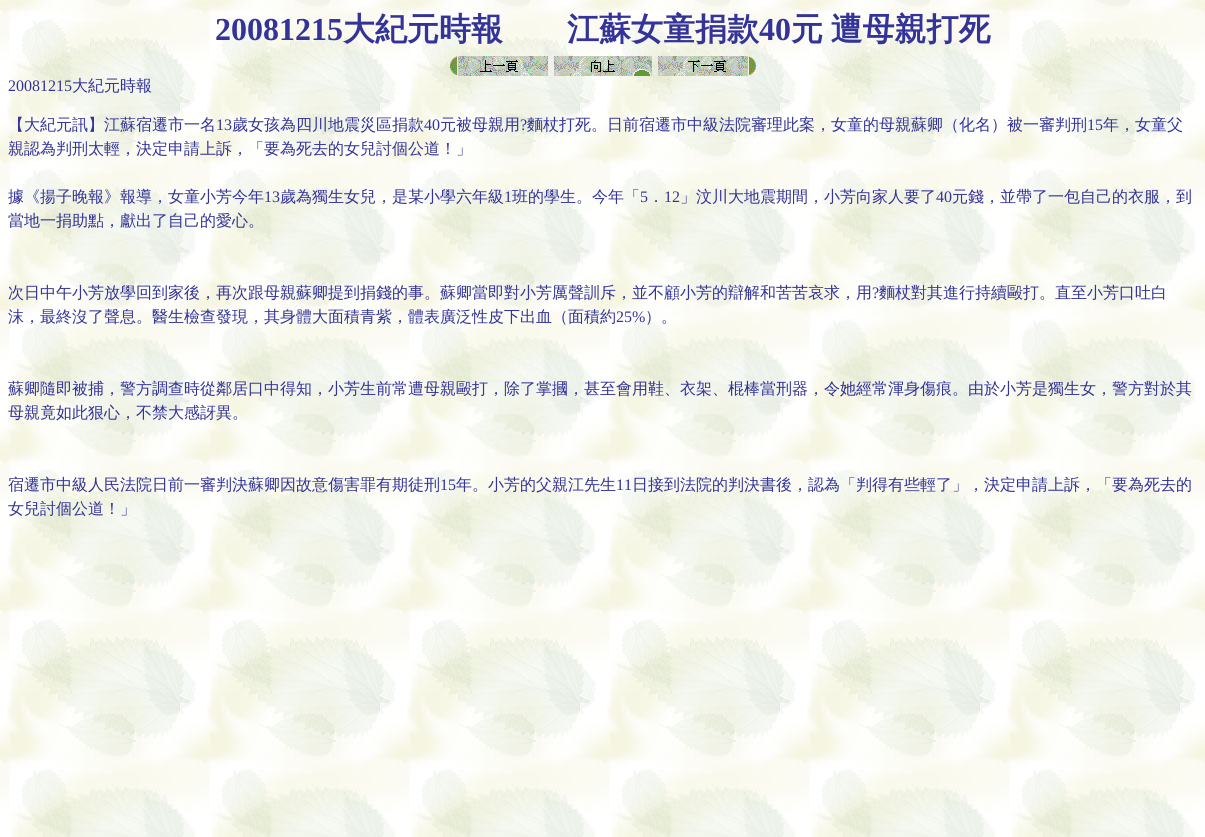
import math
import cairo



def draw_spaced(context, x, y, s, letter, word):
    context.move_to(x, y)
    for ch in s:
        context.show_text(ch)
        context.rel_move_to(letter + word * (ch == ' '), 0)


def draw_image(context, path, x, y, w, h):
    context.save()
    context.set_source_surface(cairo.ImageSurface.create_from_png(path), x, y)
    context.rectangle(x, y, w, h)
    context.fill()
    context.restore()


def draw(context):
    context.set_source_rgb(1, 1, 1)
    context.paint()
    draw_image(context, "images/1.png", 0, 0, 1205, 837)
    draw_image(context, "images/2.png", 450, 56, 98, 20)
    draw_image(context, "images/3.png", 554, 56, 98, 20)
    draw_image(context, "images/4.png", 658, 56, 98, 20)
    context.select_font_face("Liberation Serif", cairo.FontSlant.NORMAL, cairo.FontWeight.BOLD)
    context.set_font_size(32)
    context.set_source_rgb(51 / 255, 51 / 255, 153 / 255)
    context.move_to(215, 40)
    context.show_text("20081215")
    context.select_font_face("WenQuanYi Zen Hei", cairo.FontSlant.NORMAL, cairo.FontWeight.BOLD)
    context.move_to(343, 40)
    context.show_text("大紀元時報　　江蘇女童捐款")
    context.select_font_face("Liberation Serif", cairo.FontSlant.NORMAL, cairo.FontWeight.BOLD)
    context.move_to(759, 40)
    context.show_text("40")
    context.select_font_face("WenQuanYi Zen Hei", cairo.FontSlant.NORMAL, cairo.FontWeight.BOLD)
    draw_spaced(context, 791, 40, "元 遭母親打死", 0, -2)
    context.select_font_face("Liberation Serif")
    context.set_font_size(16)
    context.move_to(8, 91)
    context.show_text("20081215")
    context.select_font_face("WenQuanYi Zen Hei Medium")
    context.move_to(72, 91)
    context.show_text("大紀元時報")
    context.move_to(8, 130)
    context.show_text("【大紀元訊】江蘇宿遷市一名")
    context.select_font_face("Liberation Serif")
    context.move_to(216, 130)
    context.show_text("13")
    context.select_font_face("WenQuanYi Zen Hei Medium")
    context.move_to(232, 130)
    context.show_text("歲女孩為四川地震災區捐款")
    context.select_font_face("Liberation Serif")
    context.move_to(424, 130)
    context.show_text("40")
    context.select_font_face("WenQuanYi Zen Hei Medium")
    context.move_to(440, 130)
    context.show_text("元被母親用")
    context.select_font_face("Liberation Serif")
    context.move_to(520, 130)
    context.show_text("?")
    context.select_font_face("WenQuanYi Zen Hei Medium")
    context.move_to(527, 130)
    context.show_text("麵杖打死。日前宿遷市中級法院審理此案，女童的母親蘇卿（化名）被一審判刑")
    context.select_font_face("Liberation Serif")
    context.move_to(1087, 130)
    context.show_text("15")
    context.select_font_face("WenQuanYi Zen Hei Medium")
    context.move_to(1103, 130)
    context.show_text("年，女童父")
    context.move_to(8, 154)
    context.show_text("親認為判刑太輕，決定申請上訴，「要為死去的女兒討個公道！」")
    context.move_to(8, 202)
    context.show_text("據《揚子晚報》報導，女童小芳今年")
    context.select_font_face("Liberation Serif")
    context.move_to(264, 202)
    context.show_text("13")
    context.select_font_face("WenQuanYi Zen Hei Medium")
    context.move_to(280, 202)
    context.show_text("歲為獨生女兒，是某小學六年級")
    context.select_font_face("Liberation Serif")
    context.move_to(504, 202)
    context.show_text("1")
    context.select_font_face("WenQuanYi Zen Hei Medium")
    context.move_to(512, 202)
    context.show_text("班的學生。今年「")
    context.select_font_face("Liberation Serif")
    context.move_to(640, 202)
    context.show_text("5")
    context.select_font_face("WenQuanYi Zen Hei Medium")
    context.move_to(648, 202)
    context.show_text("．")
    context.select_font_face("Liberation Serif")
    context.move_to(664, 202)
    context.show_text("12")
    context.select_font_face("WenQuanYi Zen Hei Medium")
    context.move_to(680, 202)
    context.show_text("」汶川大地震期間，小芳向家人要了")
    context.select_font_face("Liberation Serif")
    context.move_to(936, 202)
    context.show_text("40")
    context.select_font_face("WenQuanYi Zen Hei Medium")
    context.move_to(952, 202)
    context.show_text("元錢，並帶了一包自己的衣服，到")
    context.move_to(8, 226)
    context.show_text("當地一捐助點，獻出了自己的愛心。")
    context.move_to(8, 298)
    context.show_text("次日中午小芳放學回到家後，再次跟母親蘇卿提到捐錢的事。蘇卿當即對小芳厲聲訓斥，並不顧小芳的辯解和苦苦哀求，用")
    context.select_font_face("Liberation Serif")
    context.move_to(872, 298)
    context.show_text("?")
    context.select_font_face("WenQuanYi Zen Hei Medium")
    context.move_to(879, 298)
    context.show_text("麵杖對其進行持續毆打。直至小芳口吐白")
    context.move_to(8, 322)
    context.show_text("沫，最終沒了聲息。醫生檢查發現，其身體大面積青紫，體表廣泛性皮下出血（面積約")
    context.select_font_face("Liberation Serif")
    context.move_to(616, 322)
    context.show_text("25%")
    context.select_font_face("WenQuanYi Zen Hei Medium")
    context.move_to(645, 322)
    context.show_text("）。")
    context.move_to(8, 394)
    context.show_text("蘇卿隨即被捕，警方調查時從鄰居口中得知，小芳生前常遭母親毆打，除了掌摑，甚至會用鞋、衣架、棍棒當刑器，令她經常渾身傷痕。由於小芳是獨生女，警方對於其")
    context.move_to(8, 418)
    context.show_text("母親竟如此狠心，不禁大感訝異。")
    context.move_to(8, 490)
    context.show_text("宿遷市中級人民法院日前一審判決蘇卿因故意傷害罪有期徒刑")
    context.select_font_face("Liberation Serif")
    context.move_to(440, 490)
    context.show_text("15")
    context.select_font_face("WenQuanYi Zen Hei Medium")
    context.move_to(456, 490)
    context.show_text("年。小芳的父親江先生")
    context.select_font_face("Liberation Serif")
    context.move_to(616, 490)
    context.show_text("11")
    context.select_font_face("WenQuanYi Zen Hei Medium")
    context.move_to(632, 490)
    context.show_text("日接到法院的判決書後，認為「判得有些輕了」，決定申請上訴，「要為死去的")
    context.move_to(8, 514)
    context.show_text("女兒討個公道！」")


surface = cairo.ImageSurface(cairo.Format.RGB24, 1205, 837)
context = cairo.Context(surface)
options = cairo.FontOptions()
options.set_hint_metrics(cairo.HintMetrics.OFF)
options.set_hint_style(cairo.HintStyle.NONE)
context.set_font_options(options)
context.set_miter_limit(4)
draw(context)
surface.write_to_png("out.png")
